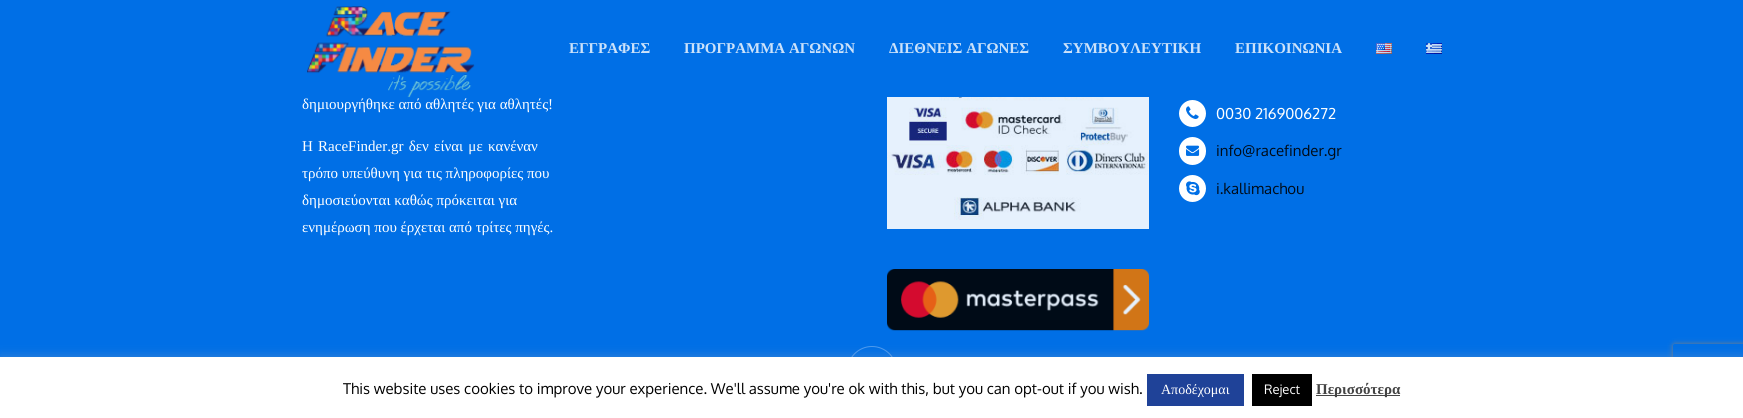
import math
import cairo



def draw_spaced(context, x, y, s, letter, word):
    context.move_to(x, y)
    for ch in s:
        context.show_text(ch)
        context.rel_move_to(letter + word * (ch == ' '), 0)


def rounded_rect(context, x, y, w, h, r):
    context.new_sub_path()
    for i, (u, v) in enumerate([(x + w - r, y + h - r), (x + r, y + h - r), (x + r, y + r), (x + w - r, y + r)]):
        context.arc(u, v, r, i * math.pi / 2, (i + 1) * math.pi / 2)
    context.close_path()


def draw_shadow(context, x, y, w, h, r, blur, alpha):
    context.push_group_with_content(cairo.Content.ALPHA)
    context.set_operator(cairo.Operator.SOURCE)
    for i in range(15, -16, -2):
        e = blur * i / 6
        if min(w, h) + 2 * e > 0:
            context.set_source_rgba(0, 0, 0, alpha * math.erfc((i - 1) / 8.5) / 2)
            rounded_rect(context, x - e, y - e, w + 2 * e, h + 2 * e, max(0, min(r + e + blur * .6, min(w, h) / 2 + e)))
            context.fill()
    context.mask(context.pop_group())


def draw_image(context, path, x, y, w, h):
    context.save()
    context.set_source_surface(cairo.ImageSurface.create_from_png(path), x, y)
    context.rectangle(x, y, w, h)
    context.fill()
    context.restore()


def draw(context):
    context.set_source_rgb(0, 111 / 255, 230 / 255)
    context.paint()
    draw_image(context, "images/1.png", 307, 6, 168, 92)
    draw_image(context, "images/2.png", 1376, 43, 16, 11)
    draw_image(context, "images/3.png", 1426, 43, 16, 11)
    draw_image(context, "images/4.png", 887, 97, 262, 132)
    draw_image(context, "images/5.png", 887, 269, 262, 62)
    context.set_source_rgb(1, 1, 1)
    context.arc(1192.5, 113.5, 13.5, 0, 2 * math.pi)
    context.fill()
    draw_image(context, "images/6.png", 1186, 106, 13, 13)
    rounded_rect(context, 1179, 137, 27, 28, 13.5)
    context.fill()
    draw_image(context, "images/7.png", 1186, 145, 14, 11)
    context.arc(1192.5, 188.5, 13.5, 0, 2 * math.pi)
    context.fill()
    draw_image(context, "images/8.png", 1186, 181, 14, 15)
    context.arc(872, 371, 24.5, 0, 2 * math.pi)
    context.set_source_rgb(77 / 255, 154 / 255, 238 / 255)
    context.set_line_width(1)
    context.stroke()
    context.set_source_rgb(172 / 255, 171 / 255, 171 / 255)
    draw_shadow(context, 0, 356, 1743, 61, 0, 5, 0.3)
    context.save()
    context.set_fill_rule(cairo.FillRule.EVEN_ODD)
    context.new_path()
    context.move_to(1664, 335)
    context.line_to(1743, 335)
    context.line_to(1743, 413)
    context.line_to(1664, 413)
    context.close_path()
    context.move_to(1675, 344)
    context.line_to(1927, 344)
    context.curve_to(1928, 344, 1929, 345, 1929, 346)
    context.line_to(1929, 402)
    context.curve_to(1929, 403, 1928, 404, 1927, 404)
    context.line_to(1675, 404)
    context.curve_to(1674, 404, 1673, 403, 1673, 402)
    context.line_to(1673, 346)
    context.curve_to(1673, 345, 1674, 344, 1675, 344)
    context.close_path()
    context.clip()
    context.set_source_rgb(128 / 255, 128 / 255, 128 / 255)
    draw_shadow(context, 1673, 344, 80, 60, 2, 2.5, 1)
    context.restore()
    context.set_source_rgb(1, 1, 1)
    context.rectangle(0, 357, 1743, 61)
    context.fill()
    context.set_source_rgb(31 / 255, 66 / 255, 152 / 255)
    context.rectangle(1147, 374, 97, 32)
    context.fill()
    context.set_source_rgb(0, 0, 0)
    context.rectangle(1252, 374, 60, 32)
    context.fill()
    context.set_source_rgb(68 / 255, 68 / 255, 68 / 255)
    context.rectangle(1316, 395, 84, 1)
    context.fill()
    context.select_font_face("Liberation Serif", cairo.FontSlant.NORMAL, cairo.FontWeight.BOLD)
    context.set_font_size(15)
    context.set_source_rgb(204 / 255, 226 / 255, 250 / 255)
    context.move_to(569, 53)
    context.show_text("ΕΓΓΡΑΦΕΣ")
    context.move_to(684, 53)
    context.show_text("ΠΡΟΓΡΑΜΜΑ ΑΓΩΝΩΝ")
    context.move_to(889, 53)
    context.show_text("ΔΙΕΘΝΕΙΣ ΑΓΩΝΕΣ")
    context.move_to(1063, 53)
    context.show_text("ΣΥΜΒΟΥΛΕΥΤΙΚΗ")
    context.move_to(1235, 53)
    context.show_text("ΕΠΙΚΟΙΝΩΝΙΑ")
    context.select_font_face("Liberation Serif")
    context.set_source_rgb(1, 1, 1)
    context.move_to(302, 109)
    context.show_text("δημιουργήθηκε από αθλητές για αθλητές!")
    draw_spaced(context, 302, 151, "H RaceFinder.gr δεν είναι με κανέναν", 0, 1.5)
    context.move_to(302, 178)
    context.show_text("τρόπο υπεύθυνη για τις πληροφορίες που")
    context.move_to(302, 205)
    context.show_text("δημοσιεύονται καθώς πρόκειται για")
    context.move_to(302, 232)
    context.show_text("ενημέρωση που έρχεται από τρίτες πηγές.")
    context.select_font_face("Oxygen")
    context.move_to(1216, 119)
    context.show_text("0030 2169006272")
    context.set_source_rgb(0, 11 / 255, 23 / 255)
    context.move_to(1216, 156)
    context.show_text("info@racefinder.gr")
    context.move_to(1216, 194)
    context.show_text("i.kallimachou")
    context.set_source_rgb(0, 0, 0)
    context.move_to(343, 394)
    context.show_text("This website uses cookies to improve your experience. We'll assume you're ok with this, but you can opt-out if you wish.")
    context.select_font_face("Liberation Serif")
    context.set_font_size(14)
    context.set_source_rgb(1, 1, 1)
    context.move_to(1161, 394)
    context.show_text("Αποδέχομαι")
    context.select_font_face("Oxygen")
    context.set_font_size(13)
    context.move_to(1264, 394)
    context.show_text("Reject")
    context.select_font_face("Liberation Serif", cairo.FontSlant.NORMAL, cairo.FontWeight.BOLD)
    context.set_font_size(15)
    context.set_source_rgb(68 / 255, 68 / 255, 68 / 255)
    context.move_to(1316, 394)
    context.show_text("Περισσότερα")


surface = cairo.ImageSurface(cairo.Format.RGB24, 1743, 418)
context = cairo.Context(surface)
options = cairo.FontOptions()
options.set_hint_metrics(cairo.HintMetrics.OFF)
options.set_hint_style(cairo.HintStyle.NONE)
context.set_font_options(options)
context.set_miter_limit(4)
draw(context)
surface.write_to_png("out.png")
